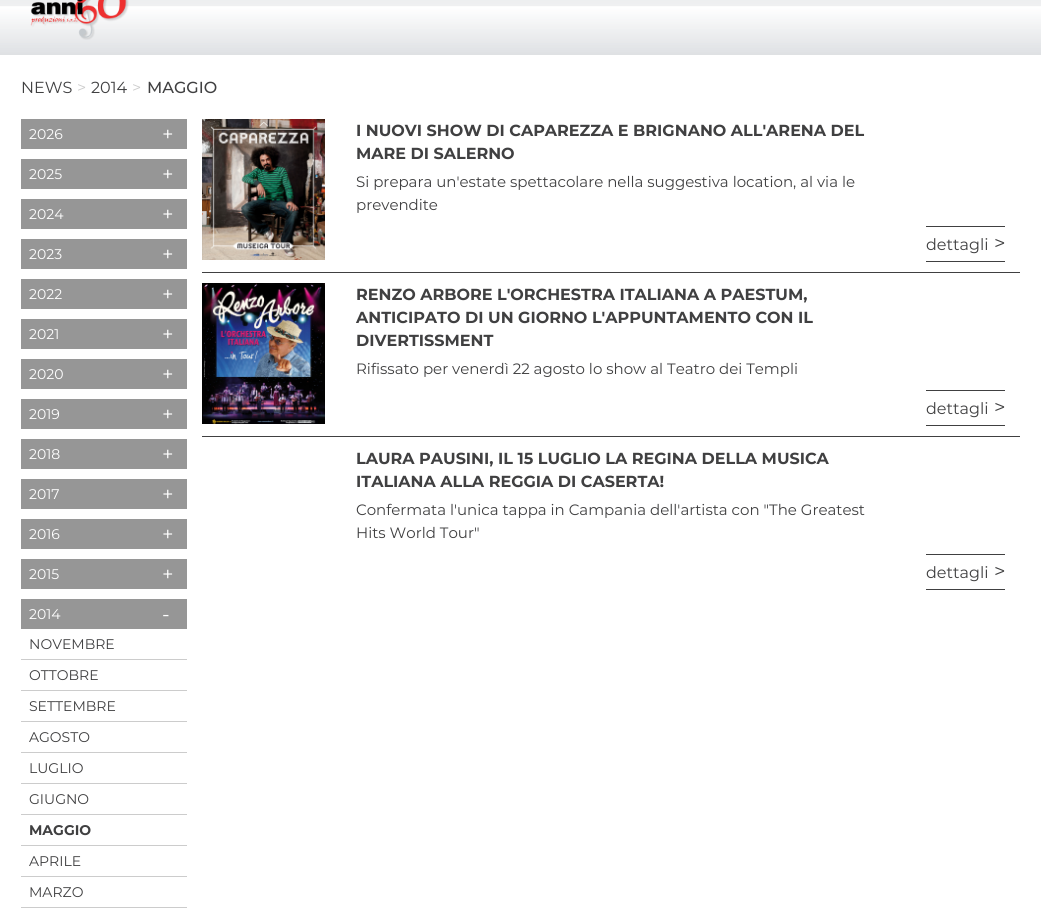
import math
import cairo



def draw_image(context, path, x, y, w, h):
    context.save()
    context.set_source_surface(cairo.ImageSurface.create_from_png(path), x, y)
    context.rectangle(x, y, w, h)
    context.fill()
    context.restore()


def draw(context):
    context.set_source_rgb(1, 1, 1)
    context.paint()
    draw_image(context, "images/1.png", 0, 0, 1041, 55)
    draw_image(context, "images/2.png", 30, 0, 99, 40)
    context.set_source_rgb(150 / 255, 150 / 255, 150 / 255)
    context.rectangle(21, 119, 166, 30)
    context.fill()
    context.rectangle(21, 159, 166, 30)
    context.fill()
    context.rectangle(21, 199, 166, 30)
    context.fill()
    context.rectangle(21, 239, 166, 30)
    context.fill()
    context.rectangle(21, 279, 166, 30)
    context.fill()
    context.rectangle(21, 319, 166, 30)
    context.fill()
    context.rectangle(21, 359, 166, 30)
    context.fill()
    context.rectangle(21, 399, 166, 30)
    context.fill()
    context.rectangle(21, 439, 166, 30)
    context.fill()
    context.rectangle(21, 479, 166, 30)
    context.fill()
    context.rectangle(21, 519, 166, 30)
    context.fill()
    context.rectangle(21, 559, 166, 30)
    context.fill()
    context.rectangle(21, 599, 166, 30)
    context.fill()
    context.set_source_rgb(204 / 255, 204 / 255, 204 / 255)
    context.rectangle(21, 659, 166, 1)
    context.fill()
    context.rectangle(21, 690, 166, 1)
    context.fill()
    context.rectangle(21, 721, 166, 1)
    context.fill()
    context.rectangle(21, 752, 166, 1)
    context.fill()
    context.rectangle(21, 783, 166, 1)
    context.fill()
    context.rectangle(21, 814, 166, 1)
    context.fill()
    context.rectangle(21, 845, 166, 1)
    context.fill()
    context.rectangle(21, 876, 166, 1)
    context.fill()
    context.rectangle(21, 907, 166, 1)
    context.fill()
    draw_image(context, "images/3.png", 202, 119, 123, 141)
    context.set_source_rgb(64 / 255, 64 / 255, 65 / 255)
    context.rectangle(926, 226, 79, 1)
    context.fill()
    context.rectangle(926, 261, 79, 1)
    context.fill()
    context.rectangle(202, 272, 818, 1)
    context.fill()
    draw_image(context, "images/4.png", 202, 283, 123, 141)
    context.rectangle(926, 390, 79, 1)
    context.fill()
    context.rectangle(926, 425, 79, 1)
    context.fill()
    context.rectangle(202, 436, 818, 1)
    context.fill()
    context.rectangle(926, 554, 79, 1)
    context.fill()
    context.rectangle(926, 589, 79, 1)
    context.fill()
    context.select_font_face("Montserrat")
    context.set_font_size(16)
    context.move_to(21, 93)
    context.show_text("NEWS")
    context.set_source_rgb(204 / 255, 204 / 255, 204 / 255)
    context.move_to(77, 93)
    context.show_text(">")
    context.set_source_rgb(64 / 255, 64 / 255, 65 / 255)
    context.move_to(91, 93)
    context.show_text("2014")
    context.set_source_rgb(204 / 255, 204 / 255, 204 / 255)
    context.move_to(132, 93)
    context.show_text(">")
    context.select_font_face("Montserrat Medium")
    context.set_source_rgb(64 / 255, 64 / 255, 65 / 255)
    context.move_to(147, 93)
    context.show_text("MAGGIO")
    context.select_font_face("Montserrat")
    context.set_font_size(14)
    context.set_source_rgb(1, 1, 1)
    context.move_to(29, 139)
    context.show_text("2026")
    context.set_font_size(20)
    context.move_to(162, 141)
    context.show_text("+")
    context.set_font_size(14)
    context.move_to(29, 179)
    context.show_text("2025")
    context.set_font_size(20)
    context.move_to(162, 181)
    context.show_text("+")
    context.set_font_size(14)
    context.move_to(29, 219)
    context.show_text("2024")
    context.set_font_size(20)
    context.move_to(162, 221)
    context.show_text("+")
    context.set_font_size(14)
    context.move_to(29, 259)
    context.show_text("2023")
    context.set_font_size(20)
    context.move_to(162, 261)
    context.show_text("+")
    context.set_font_size(14)
    context.move_to(29, 299)
    context.show_text("2022")
    context.set_font_size(20)
    context.move_to(162, 301)
    context.show_text("+")
    context.set_font_size(14)
    context.move_to(29, 339)
    context.show_text("2021")
    context.set_font_size(20)
    context.move_to(162, 341)
    context.show_text("+")
    context.set_font_size(14)
    context.move_to(29, 379)
    context.show_text("2020")
    context.set_font_size(20)
    context.move_to(162, 381)
    context.show_text("+")
    context.set_font_size(14)
    context.move_to(29, 419)
    context.show_text("2019")
    context.set_font_size(20)
    context.move_to(162, 421)
    context.show_text("+")
    context.set_font_size(14)
    context.move_to(29, 459)
    context.show_text("2018")
    context.set_font_size(20)
    context.move_to(162, 461)
    context.show_text("+")
    context.set_font_size(14)
    context.move_to(29, 499)
    context.show_text("2017")
    context.set_font_size(20)
    context.move_to(162, 501)
    context.show_text("+")
    context.set_font_size(14)
    context.move_to(29, 539)
    context.show_text("2016")
    context.set_font_size(20)
    context.move_to(162, 541)
    context.show_text("+")
    context.set_font_size(14)
    context.move_to(29, 579)
    context.show_text("2015")
    context.set_font_size(20)
    context.move_to(162, 581)
    context.show_text("+")
    context.set_font_size(14)
    context.move_to(29, 619)
    context.show_text("2014")
    context.set_font_size(20)
    context.move_to(162, 621)
    context.show_text("-")
    context.set_font_size(14)
    context.set_source_rgb(64 / 255, 64 / 255, 65 / 255)
    context.move_to(29, 649)
    context.show_text("NOVEMBRE")
    context.move_to(29, 680)
    context.show_text("OTTOBRE")
    context.move_to(29, 711)
    context.show_text("SETTEMBRE")
    context.move_to(29, 742)
    context.show_text("AGOSTO")
    context.move_to(29, 773)
    context.show_text("LUGLIO")
    context.move_to(29, 804)
    context.show_text("GIUGNO")
    context.select_font_face("Montserrat", cairo.FontSlant.NORMAL, cairo.FontWeight.BOLD)
    context.move_to(29, 835)
    context.show_text("MAGGIO")
    context.select_font_face("Montserrat")
    context.move_to(29, 866)
    context.show_text("APRILE")
    context.move_to(29, 897)
    context.show_text("MARZO")
    context.select_font_face("Montserrat", cairo.FontSlant.NORMAL, cairo.FontWeight.BOLD)
    context.set_font_size(16)
    context.move_to(356, 136)
    context.show_text("I NUOVI SHOW DI CAPAREZZA E BRIGNANO ALL'ARENA DEL")
    context.move_to(356, 159)
    context.show_text("MARE DI SALERNO")
    context.select_font_face("Montserrat")
    context.set_font_size(15)
    context.move_to(356, 187)
    context.show_text("Si prepara un'estate spettacolare nella suggestiva location, al via le")
    context.move_to(356, 210)
    context.show_text("prevendite")
    context.set_font_size(16)
    context.move_to(926, 250)
    context.show_text("dettagli")
    context.set_font_size(20)
    context.move_to(994, 250)
    context.show_text(">")
    context.select_font_face("Montserrat", cairo.FontSlant.NORMAL, cairo.FontWeight.BOLD)
    context.set_font_size(16)
    context.move_to(356, 300)
    context.show_text("RENZO ARBORE L'ORCHESTRA ITALIANA A PAESTUM,")
    context.move_to(356, 323)
    context.show_text("ANTICIPATO DI UN GIORNO L'APPUNTAMENTO CON IL")
    context.move_to(356, 346)
    context.show_text("DIVERTISSMENT")
    context.select_font_face("Montserrat")
    context.set_font_size(15)
    context.move_to(356, 374)
    context.show_text("Rifissato per venerdì 22 agosto lo show al Teatro dei Templi")
    context.set_font_size(16)
    context.move_to(926, 414)
    context.show_text("dettagli")
    context.set_font_size(20)
    context.move_to(994, 414)
    context.show_text(">")
    context.select_font_face("Montserrat", cairo.FontSlant.NORMAL, cairo.FontWeight.BOLD)
    context.set_font_size(16)
    context.move_to(356, 464)
    context.show_text("LAURA PAUSINI, IL 15 LUGLIO LA REGINA DELLA MUSICA")
    context.move_to(356, 487)
    context.show_text("ITALIANA ALLA REGGIA DI CASERTA!")
    context.select_font_face("Montserrat")
    context.set_font_size(15)
    context.move_to(356, 515)
    context.show_text("Confermata l'unica tappa in Campania dell'artista con \"The Greatest")
    context.move_to(356, 538)
    context.show_text("Hits World Tour\"")
    context.set_font_size(16)
    context.move_to(926, 578)
    context.show_text("dettagli")
    context.set_font_size(20)
    context.move_to(994, 578)
    context.show_text(">")


surface = cairo.ImageSurface(cairo.Format.RGB24, 1041, 923)
context = cairo.Context(surface)
options = cairo.FontOptions()
options.set_hint_metrics(cairo.HintMetrics.OFF)
options.set_hint_style(cairo.HintStyle.NONE)
context.set_font_options(options)
context.set_miter_limit(4)
draw(context)
surface.write_to_png("out.png")
